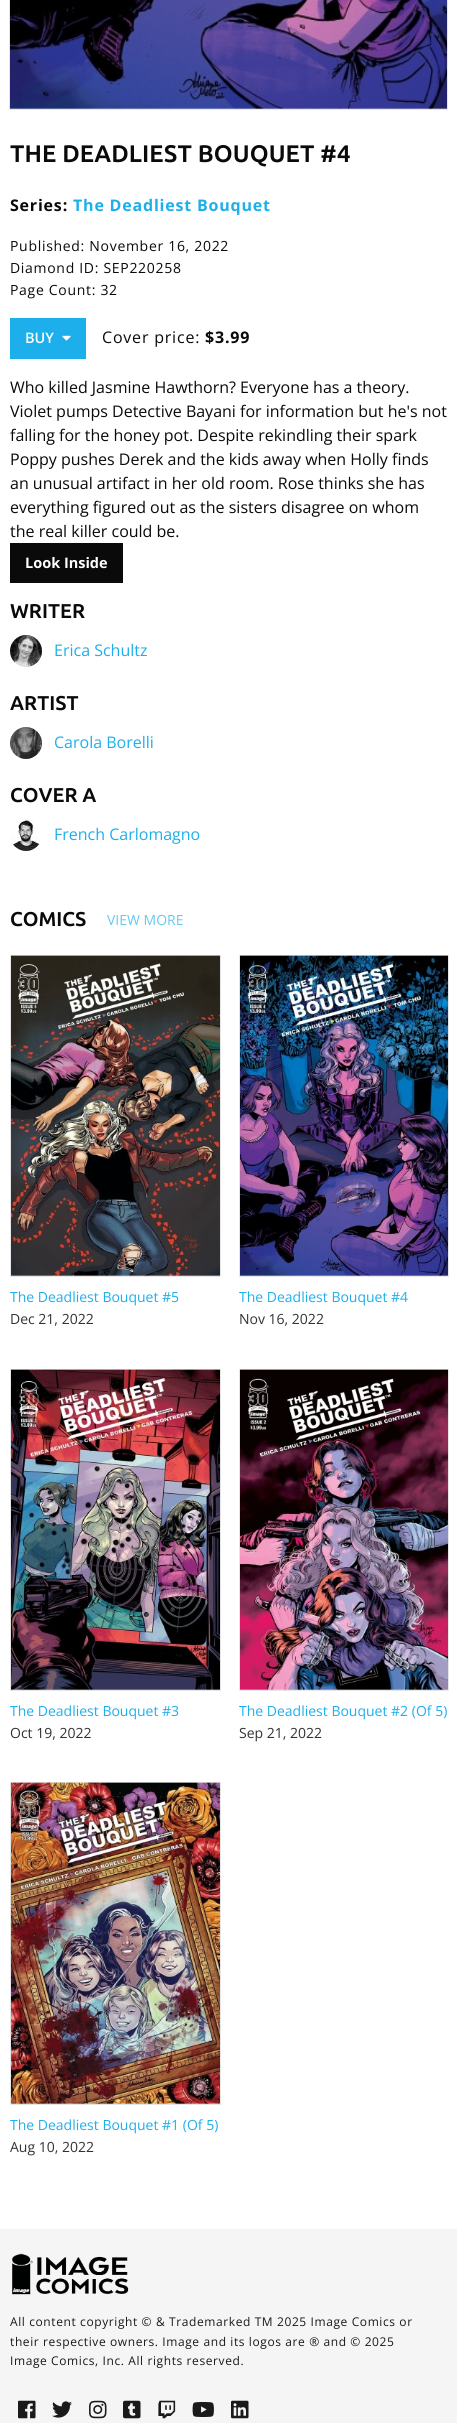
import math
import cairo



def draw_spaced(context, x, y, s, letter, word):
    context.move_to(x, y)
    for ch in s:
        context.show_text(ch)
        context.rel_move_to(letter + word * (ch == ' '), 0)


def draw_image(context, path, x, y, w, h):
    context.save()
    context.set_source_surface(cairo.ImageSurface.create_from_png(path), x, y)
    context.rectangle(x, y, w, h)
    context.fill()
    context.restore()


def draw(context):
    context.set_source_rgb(245 / 255, 245 / 255, 245 / 255)
    context.paint()
    context.set_source_rgb(1, 1, 1)
    context.rectangle(0, 0, 457, 2229)
    context.fill()
    context.rectangle(9.5, -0.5, 438, 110)
    context.set_source_rgb(230 / 255, 230 / 255, 230 / 255)
    context.set_line_width(1)
    context.stroke()
    draw_image(context, "images/1.png", 10, 0, 437, 109)
    context.set_source_rgb(29 / 255, 175 / 255, 236 / 255)
    context.rectangle(10, 318, 76, 41)
    context.fill()
    draw_image(context, "images/2.png", 62, 335, 9, 6)
    context.set_source_rgb(10 / 255, 10 / 255, 10 / 255)
    context.rectangle(10, 543, 113, 40)
    context.fill()
    draw_image(context, "images/3.png", 10, 635, 32, 32)
    draw_image(context, "images/4.png", 10, 727, 32, 32)
    draw_image(context, "images/5.png", 10, 819, 30, 32)
    context.set_source_rgb(230 / 255, 230 / 255, 230 / 255)
    context.rectangle(11, 1275, 208, 1)
    context.fill()
    context.rectangle(10.5, 955.5, 210, 321)
    context.stroke()
    draw_image(context, "images/6.png", 11, 955, 209, 321)
    context.rectangle(240, 1275, 207, 1)
    context.fill()
    context.rectangle(239.5, 955.5, 209, 321)
    context.stroke()
    draw_image(context, "images/7.png", 240, 955, 208, 321)
    context.rectangle(11, 1689, 208, 1)
    context.fill()
    context.rectangle(10.5, 1369.5, 210, 321)
    context.stroke()
    draw_image(context, "images/8.png", 11, 1369, 209, 321)
    context.rectangle(240, 1689, 207, 1)
    context.fill()
    context.rectangle(239.5, 1369.5, 209, 321)
    context.stroke()
    draw_image(context, "images/9.png", 240, 1369, 208, 321)
    context.rectangle(11, 2103, 208, 1)
    context.fill()
    context.rectangle(10.5, 1782.5, 210, 322)
    context.stroke()
    draw_image(context, "images/10.png", 11, 1782, 209, 322)
    draw_image(context, "images/11.png", 12, 2253, 117, 42)
    draw_image(context, "images/12.png", 18, 2400, 18, 19)
    draw_image(context, "images/13.png", 52, 2401, 20, 17)
    draw_image(context, "images/14.png", 89, 2400, 18, 19)
    draw_image(context, "images/15.png", 123, 2400, 18, 19)
    draw_image(context, "images/16.png", 158, 2400, 18, 19)
    draw_image(context, "images/17.png", 192, 2402, 22, 15)
    draw_image(context, "images/18.png", 231, 2400, 18, 19)
    context.select_font_face("Ubuntu", cairo.FontSlant.NORMAL, cairo.FontWeight.BOLD)
    context.set_font_size(24)
    context.set_source_rgb(10 / 255, 10 / 255, 10 / 255)
    draw_spaced(context, 10, 162, "THE DEADLIEST BOUQUET #4", 0.1, 0)
    context.select_font_face("Open Sans", cairo.FontSlant.NORMAL, cairo.FontWeight.BOLD)
    context.set_font_size(16)
    draw_spaced(context, 10, 211, "Series:", 0.8, 0)
    context.set_source_rgb(29 / 255, 175 / 255, 236 / 255)
    draw_spaced(context, 73, 211, "The Deadliest Bouquet", 0.8, 0)
    context.select_font_face("Open Sans")
    context.set_font_size(14)
    context.set_source_rgb(10 / 255, 10 / 255, 10 / 255)
    draw_spaced(context, 10, 251, "Published: November 16, 2022", 0.7, 0)
    draw_spaced(context, 10, 273, "Diamond ID: SEP220258", 0.7, 0)
    draw_spaced(context, 10, 295, "Page Count: 32", 0.7, 0)
    context.select_font_face("Open Sans SemiBold")
    context.set_font_size(14.5)
    context.set_source_rgb(254 / 255, 254 / 255, 254 / 255)
    context.move_to(25, 343)
    context.show_text("BUY")
    context.select_font_face("Open Sans")
    context.set_font_size(16)
    context.set_source_rgb(10 / 255, 10 / 255, 10 / 255)
    draw_spaced(context, 102, 343, "Cover price:", 0.8, 0)
    context.select_font_face("Open Sans", cairo.FontSlant.NORMAL, cairo.FontWeight.BOLD)
    draw_spaced(context, 205, 343, "$3.99", 0.8, 0)
    context.select_font_face("Open Sans")
    context.move_to(10, 393)
    context.show_text("Who killed Jasmine Hawthorn? Everyone has a theory.")
    context.move_to(10, 417)
    context.show_text("Violet pumps Detective Bayani for information but he's not")
    context.move_to(10, 441)
    context.show_text("falling for the honey pot. Despite rekindling their spark")
    context.move_to(10, 465)
    context.show_text("Poppy pushes Derek and the kids away when Holly finds")
    context.move_to(10, 489)
    context.show_text("an unusual artifact in her old room. Rose thinks she has")
    context.move_to(10, 513)
    context.show_text("everything figured out as the sisters disagree on whom")
    context.move_to(10, 537)
    context.show_text("the real killer could be.")
    context.select_font_face("Open Sans", cairo.FontSlant.NORMAL, cairo.FontWeight.BOLD)
    context.set_font_size(14.5)
    context.set_source_rgb(254 / 255, 254 / 255, 254 / 255)
    context.move_to(25, 568)
    context.show_text("Look Inside")
    context.select_font_face("Ubuntu", cairo.FontSlant.NORMAL, cairo.FontWeight.BOLD)
    context.set_font_size(20)
    context.set_source_rgb(10 / 255, 10 / 255, 10 / 255)
    context.move_to(10, 618)
    context.show_text("WRITER")
    context.select_font_face("Open Sans")
    context.set_font_size(16)
    context.set_source_rgb(29 / 255, 175 / 255, 236 / 255)
    context.move_to(54, 656)
    context.show_text("Erica Schultz")
    context.select_font_face("Ubuntu", cairo.FontSlant.NORMAL, cairo.FontWeight.BOLD)
    context.set_font_size(20)
    context.set_source_rgb(10 / 255, 10 / 255, 10 / 255)
    context.move_to(10, 710)
    context.show_text("ARTIST")
    context.select_font_face("Open Sans")
    context.set_font_size(16)
    context.set_source_rgb(29 / 255, 175 / 255, 236 / 255)
    context.move_to(54, 748)
    context.show_text("Carola Borelli")
    context.select_font_face("Ubuntu", cairo.FontSlant.NORMAL, cairo.FontWeight.BOLD)
    context.set_font_size(20)
    context.set_source_rgb(10 / 255, 10 / 255, 10 / 255)
    context.move_to(10, 802)
    context.show_text("COVER A")
    context.select_font_face("Open Sans")
    context.set_font_size(16)
    context.set_source_rgb(29 / 255, 175 / 255, 236 / 255)
    context.move_to(54, 840)
    context.show_text("French Carlomagno")
    context.select_font_face("Ubuntu", cairo.FontSlant.NORMAL, cairo.FontWeight.BOLD)
    context.set_font_size(20)
    context.set_source_rgb(10 / 255, 10 / 255, 10 / 255)
    context.move_to(10, 926)
    context.show_text("COMICS")
    context.select_font_face("Open Sans")
    context.set_font_size(14)
    context.set_source_rgb(100 / 255, 200 / 255, 242 / 255)
    context.move_to(107, 925)
    context.show_text("VIEW MORE")
    context.set_source_rgb(29 / 255, 175 / 255, 236 / 255)
    context.move_to(10, 1302)
    context.show_text("The Deadliest Bouquet #5")
    context.set_source_rgb(51 / 255, 51 / 255, 51 / 255)
    context.move_to(10, 1324)
    context.show_text("Dec 21, 2022")
    context.set_source_rgb(29 / 255, 175 / 255, 236 / 255)
    context.move_to(239, 1302)
    context.show_text("The Deadliest Bouquet #4")
    context.set_source_rgb(51 / 255, 51 / 255, 51 / 255)
    context.move_to(239, 1324)
    context.show_text("Nov 16, 2022")
    context.set_source_rgb(29 / 255, 175 / 255, 236 / 255)
    context.move_to(10, 1716)
    context.show_text("The Deadliest Bouquet #3")
    context.set_source_rgb(51 / 255, 51 / 255, 51 / 255)
    context.move_to(10, 1738)
    context.show_text("Oct 19, 2022")
    context.set_source_rgb(29 / 255, 175 / 255, 236 / 255)
    context.move_to(239, 1716)
    context.show_text("The Deadliest Bouquet #2 (Of 5)")
    context.set_source_rgb(51 / 255, 51 / 255, 51 / 255)
    context.move_to(239, 1738)
    context.show_text("Sep 21, 2022")
    context.set_source_rgb(29 / 255, 175 / 255, 236 / 255)
    context.move_to(10, 2130)
    context.show_text("The Deadliest Bouquet #1 (Of 5)")
    context.set_source_rgb(51 / 255, 51 / 255, 51 / 255)
    context.move_to(10, 2152)
    context.show_text("Aug 10, 2022")
    context.set_font_size(12)
    context.set_source_rgb(26 / 255, 26 / 255, 26 / 255)
    draw_spaced(context, 10, 2326, "All content copyright © & Trademarked TM 2025 Image Comics or", 0.6, 0)
    draw_spaced(context, 10, 2346, "their respective owners. Image and its logos are ® and © 2025", 0.6, 0)
    draw_spaced(context, 10, 2365, "Image Comics, Inc. All rights reserved.", 0.6, 0)


surface = cairo.ImageSurface(cairo.Format.RGB24, 457, 2423)
context = cairo.Context(surface)
options = cairo.FontOptions()
options.set_hint_metrics(cairo.HintMetrics.OFF)
options.set_hint_style(cairo.HintStyle.NONE)
context.set_font_options(options)
context.set_miter_limit(4)
draw(context)
surface.write_to_png("out.png")
